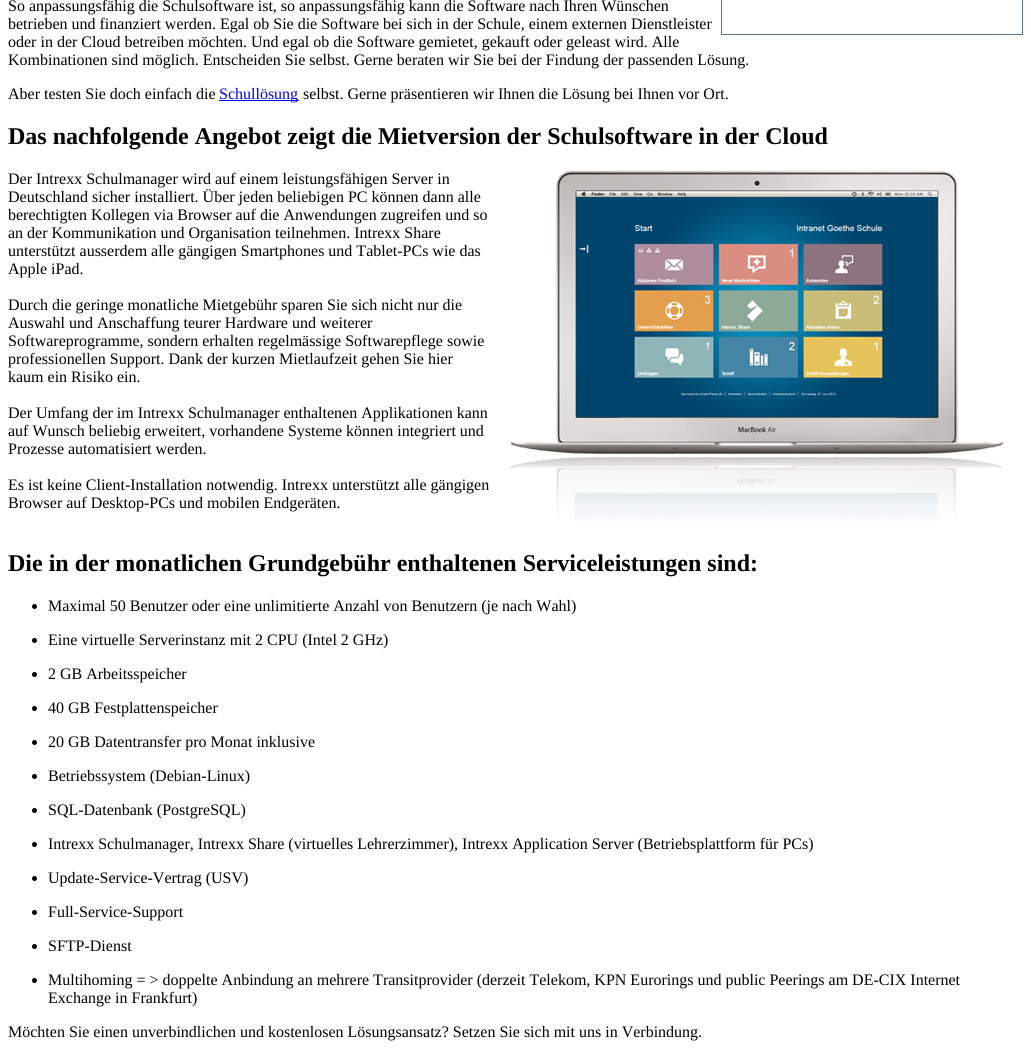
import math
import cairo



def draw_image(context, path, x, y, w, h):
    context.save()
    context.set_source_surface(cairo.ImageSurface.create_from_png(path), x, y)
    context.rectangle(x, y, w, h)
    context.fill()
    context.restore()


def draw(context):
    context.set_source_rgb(1, 1, 1)
    context.paint()
    context.rectangle(721.5, -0.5, 301, 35)
    context.set_source_rgb(82 / 255, 120 / 255, 141 / 255)
    context.set_line_width(1)
    context.stroke()
    context.set_source_rgb(0, 0, 238 / 255)
    context.rectangle(219, 100, 80, 1)
    context.fill()
    draw_image(context, "images/1.png", 510, 170, 493, 351)
    context.set_source_rgb(0, 0, 0)
    context.arc(34.5, 606.5, 2.5, 0, 2 * math.pi)
    context.fill()
    context.arc(34.5, 640.5, 2.5, 0, 2 * math.pi)
    context.fill()
    context.arc(34.5, 674.5, 2.5, 0, 2 * math.pi)
    context.fill()
    context.arc(34.5, 708.5, 2.5, 0, 2 * math.pi)
    context.fill()
    context.arc(34.5, 742.5, 2.5, 0, 2 * math.pi)
    context.fill()
    context.arc(34.5, 776.5, 2.5, 0, 2 * math.pi)
    context.fill()
    context.arc(34.5, 810.5, 2.5, 0, 2 * math.pi)
    context.fill()
    context.arc(34.5, 844.5, 2.5, 0, 2 * math.pi)
    context.fill()
    context.arc(34.5, 878.5, 2.5, 0, 2 * math.pi)
    context.fill()
    context.arc(34.5, 912.5, 2.5, 0, 2 * math.pi)
    context.fill()
    context.arc(34.5, 946.5, 2.5, 0, 2 * math.pi)
    context.fill()
    context.arc(34.5, 980.5, 2.5, 0, 2 * math.pi)
    context.fill()
    context.select_font_face("Liberation Serif")
    context.set_font_size(16)
    context.move_to(8, 11)
    context.show_text("So anpassungsfähig die Schulsoftware ist, so anpassungsfähig kann die Software nach Ihren Wünschen")
    context.move_to(8, 29)
    context.show_text("betrieben und finanziert werden. Egal ob Sie die Software bei sich in der Schule, einem externen Dienstleister")
    context.move_to(8, 47)
    context.show_text("oder in der Cloud betreiben möchten. Und egal ob die Software gemietet, gekauft oder geleast wird. Alle")
    context.move_to(8, 65)
    context.show_text("Kombinationen sind möglich. Entscheiden Sie selbst. Gerne beraten wir Sie bei der Findung der passenden Lösung.")
    context.move_to(8, 99)
    context.show_text("Aber testen Sie doch einfach die")
    context.set_source_rgb(0, 0, 238 / 255)
    context.move_to(219, 99)
    context.show_text("Schullösung")
    context.set_source_rgb(0, 0, 0)
    context.move_to(303, 99)
    context.show_text("selbst. Gerne präsentieren wir Ihnen die Lösung bei Ihnen vor Ort.")
    context.select_font_face("Liberation Serif", cairo.FontSlant.NORMAL, cairo.FontWeight.BOLD)
    context.set_font_size(24)
    context.move_to(8, 144)
    context.show_text("Das nachfolgende Angebot zeigt die Mietversion der Schulsoftware in der Cloud")
    context.select_font_face("Liberation Serif")
    context.set_font_size(16)
    context.move_to(8, 184)
    context.show_text("Der Intrexx Schulmanager wird auf einem leistungsfähigen Server in")
    context.move_to(8, 202)
    context.show_text("Deutschland sicher installiert. Über jeden beliebigen PC können dann alle")
    context.move_to(8, 220)
    context.show_text("berechtigten Kollegen via Browser auf die Anwendungen zugreifen und so")
    context.move_to(8, 238)
    context.show_text("an der Kommunikation und Organisation teilnehmen. Intrexx Share")
    context.move_to(8, 256)
    context.show_text("unterstützt ausserdem alle gängigen Smartphones und Tablet-PCs wie das")
    context.move_to(8, 274)
    context.show_text("Apple iPad.")
    context.move_to(8, 310)
    context.show_text("Durch die geringe monatliche Mietgebühr sparen Sie sich nicht nur die")
    context.move_to(8, 328)
    context.show_text("Auswahl und Anschaffung teurer Hardware und weiterer")
    context.move_to(8, 346)
    context.show_text("Softwareprogramme, sondern erhalten regelmässige Softwarepflege sowie")
    context.move_to(8, 364)
    context.show_text("professionellen Support. Dank der kurzen Mietlaufzeit gehen Sie hier")
    context.move_to(8, 382)
    context.show_text("kaum ein Risiko ein.")
    context.move_to(8, 418)
    context.show_text("Der Umfang der im Intrexx Schulmanager enthaltenen Applikationen kann")
    context.move_to(8, 436)
    context.show_text("auf Wunsch beliebig erweitert, vorhandene Systeme können integriert und")
    context.move_to(8, 454)
    context.show_text("Prozesse automatisiert werden.")
    context.move_to(8, 490)
    context.show_text("Es ist keine Client-Installation notwendig. Intrexx unterstützt alle gängigen")
    context.move_to(8, 508)
    context.show_text("Browser auf Desktop-PCs und mobilen Endgeräten.")
    context.select_font_face("Liberation Serif", cairo.FontSlant.NORMAL, cairo.FontWeight.BOLD)
    context.set_font_size(24)
    context.move_to(8, 571)
    context.show_text("Die in der monatlichen Grundgebühr enthaltenen Serviceleistungen sind:")
    context.select_font_face("Liberation Serif")
    context.set_font_size(16)
    context.move_to(48, 611)
    context.show_text("Maximal 50 Benutzer oder eine unlimitierte Anzahl von Benutzern (je nach Wahl)")
    context.move_to(48, 645)
    context.show_text("Eine virtuelle Serverinstanz mit 2 CPU (Intel 2 GHz)")
    context.move_to(48, 679)
    context.show_text("2 GB Arbeitsspeicher")
    context.move_to(48, 713)
    context.show_text("40 GB Festplattenspeicher")
    context.move_to(48, 747)
    context.show_text("20 GB Datentransfer pro Monat inklusive")
    context.move_to(48, 781)
    context.show_text("Betriebssystem (Debian-Linux)")
    context.move_to(48, 815)
    context.show_text("SQL-Datenbank (PostgreSQL)")
    context.move_to(48, 849)
    context.show_text("Intrexx Schulmanager, Intrexx Share (virtuelles Lehrerzimmer), Intrexx Application Server (Betriebsplattform für PCs)")
    context.move_to(48, 883)
    context.show_text("Update-Service-Vertrag (USV)")
    context.move_to(48, 917)
    context.show_text("Full-Service-Support")
    context.move_to(48, 951)
    context.show_text("SFTP-Dienst")
    context.move_to(48, 985)
    context.show_text("Multihoming = > doppelte Anbindung an mehrere Transitprovider (derzeit Telekom, KPN Eurorings und public Peerings am DE-CIX Internet")
    context.move_to(48, 1003)
    context.show_text("Exchange in Frankfurt)")
    context.move_to(8, 1037)
    context.show_text("Möchten Sie einen unverbindlichen und kostenlosen Lösungsansatz? Setzen Sie sich mit uns in Verbindung.")


surface = cairo.ImageSurface(cairo.Format.RGB24, 1031, 1051)
context = cairo.Context(surface)
options = cairo.FontOptions()
options.set_hint_metrics(cairo.HintMetrics.OFF)
options.set_hint_style(cairo.HintStyle.NONE)
context.set_font_options(options)
context.set_miter_limit(4)
draw(context)
surface.write_to_png("out.png")
